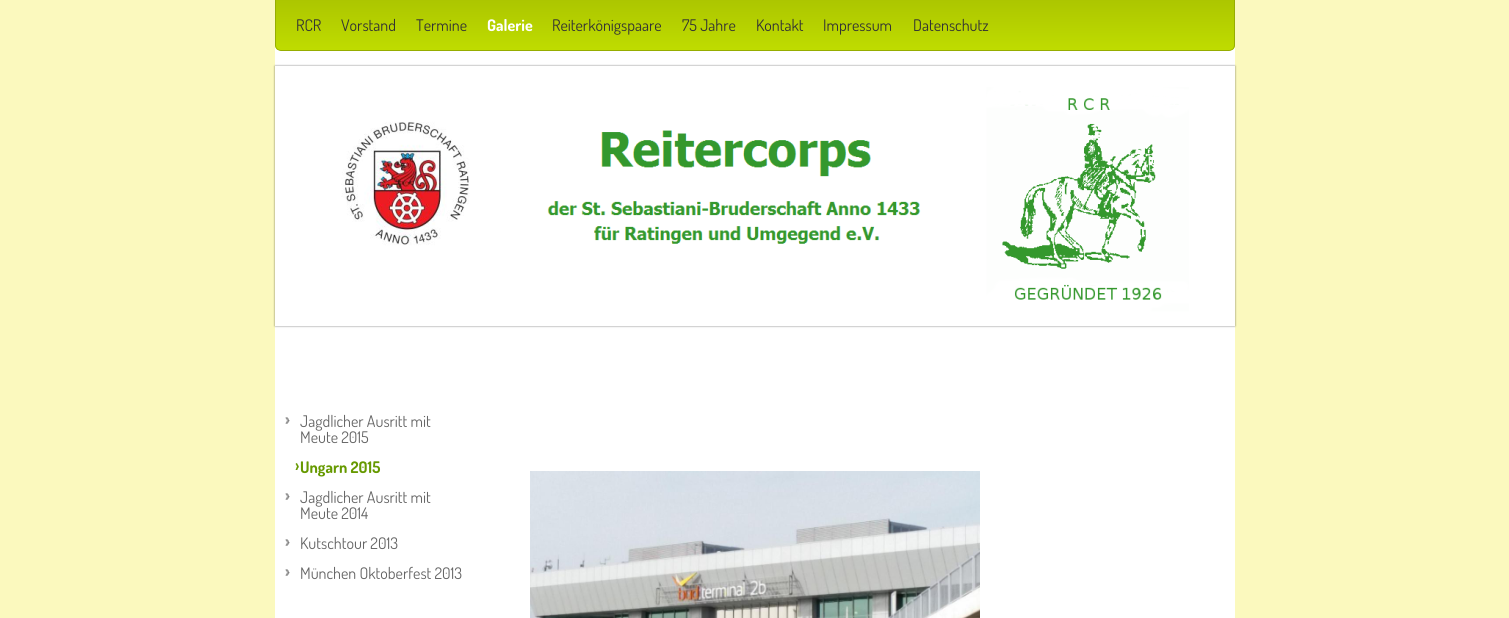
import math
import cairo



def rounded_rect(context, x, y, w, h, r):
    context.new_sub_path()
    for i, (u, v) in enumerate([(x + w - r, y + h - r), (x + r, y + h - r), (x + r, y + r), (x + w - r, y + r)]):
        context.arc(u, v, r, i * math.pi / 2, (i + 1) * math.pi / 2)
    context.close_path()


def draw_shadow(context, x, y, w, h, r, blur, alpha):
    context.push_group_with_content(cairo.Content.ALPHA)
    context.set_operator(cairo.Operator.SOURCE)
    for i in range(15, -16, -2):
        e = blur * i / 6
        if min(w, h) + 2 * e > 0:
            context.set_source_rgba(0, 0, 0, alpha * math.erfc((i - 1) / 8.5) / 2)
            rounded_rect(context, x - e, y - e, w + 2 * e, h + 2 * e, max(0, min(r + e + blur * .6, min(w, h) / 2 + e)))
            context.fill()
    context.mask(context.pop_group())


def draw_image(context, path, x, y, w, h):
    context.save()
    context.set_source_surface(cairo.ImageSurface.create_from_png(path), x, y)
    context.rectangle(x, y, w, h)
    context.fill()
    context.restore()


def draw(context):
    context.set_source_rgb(251 / 255, 249 / 255, 190 / 255)
    context.paint()
    context.set_source_rgb(1, 1, 1)
    context.rectangle(275, 45, 960, 573)
    context.fill()
    context.save()
    context.new_path()
    context.move_to(275, 0)
    context.line_to(1235, 0)
    context.line_to(1235, 45)
    context.curve_to(1235, 48.5, 1232.5, 51, 1229, 51)
    context.line_to(281, 51)
    context.curve_to(277.5, 51, 275, 48.5, 275, 45)
    context.close_path()
    context.clip()
    gradient = cairo.LinearGradient(755, 0, 755, 50)
    gradient.add_color_stop_rgba(0, 172 / 255, 198 / 255, 0, 1)
    gradient.add_color_stop_rgba(1, 191 / 255, 220 / 255, 0, 1)
    context.set_source(gradient)
    context.rectangle(275, 0, 960, 50)
    context.fill()
    context.restore()
    context.set_source_rgb(150 / 255, 173 / 255, 0)
    context.set_fill_rule(cairo.FillRule.EVEN_ODD)
    context.new_path()
    context.move_to(275, 0)
    context.line_to(1235, 0)
    context.line_to(1235, 45)
    context.curve_to(1235, 48, 1232, 51, 1229, 51)
    context.line_to(281, 51)
    context.curve_to(278, 51, 275, 48, 275, 45)
    context.close_path()
    context.move_to(276, 0)
    context.line_to(1234, 0)
    context.line_to(1234, 45)
    context.curve_to(1234, 48, 1232, 50, 1229, 50)
    context.line_to(281, 50)
    context.curve_to(278, 50, 276, 48, 276, 45)
    context.close_path()
    context.fill()
    context.save()
    context.new_path()
    context.move_to(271, 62)
    context.line_to(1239, 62)
    context.line_to(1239, 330)
    context.line_to(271, 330)
    context.close_path()
    context.move_to(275, 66)
    context.line_to(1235, 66)
    context.line_to(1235, 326)
    context.line_to(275, 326)
    context.close_path()
    context.clip()
    context.set_source_rgb(0, 0, 0)
    draw_shadow(context, 275, 66, 960, 260, 0, 1, 0.5)
    context.restore()
    draw_image(context, "images/1.png", 285, 76, 940, 240)
    draw_image(context, "images/2.png", 285, 417, 5, 7)
    draw_image(context, "images/3.png", 295, 463, 4, 7)
    draw_image(context, "images/2.png", 285, 493, 5, 7)
    draw_image(context, "images/2.png", 285, 539, 5, 7)
    draw_image(context, "images/2.png", 285, 569, 5, 7)
    draw_image(context, "images/4.png", 530, 471, 450, 147)
    context.select_font_face("Dosis")
    context.set_font_size(16)
    context.set_source_rgb(51 / 255, 51 / 255, 51 / 255)
    context.move_to(296, 31)
    context.show_text("RCR")
    context.move_to(341, 31)
    context.show_text("Vorstand")
    context.move_to(416, 31)
    context.show_text("Termine")
    context.select_font_face("Dosis", cairo.FontSlant.NORMAL, cairo.FontWeight.BOLD)
    context.set_source_rgb(1, 1, 1)
    context.move_to(487, 31)
    context.show_text("Galerie")
    context.select_font_face("Dosis")
    context.set_source_rgb(51 / 255, 51 / 255, 51 / 255)
    context.move_to(552, 31)
    context.show_text("Reiterkönigspaare")
    context.move_to(682, 31)
    context.show_text("75 Jahre")
    context.move_to(756, 31)
    context.show_text("Kontakt")
    context.move_to(823, 31)
    context.show_text("Impressum")
    context.move_to(913, 31)
    context.show_text("Datenschutz")
    context.set_source_rgb(102 / 255, 102 / 255, 102 / 255)
    context.move_to(300, 427)
    context.show_text("Jagdlicher Ausritt mit")
    context.move_to(300, 443)
    context.show_text("Meute 2015")
    context.select_font_face("Dosis", cairo.FontSlant.NORMAL, cairo.FontWeight.BOLD)
    context.set_source_rgb(102 / 255, 153 / 255, 0)
    context.move_to(300, 473)
    context.show_text("Ungarn 2015")
    context.select_font_face("Dosis")
    context.set_source_rgb(102 / 255, 102 / 255, 102 / 255)
    context.move_to(300, 503)
    context.show_text("Jagdlicher Ausritt mit")
    context.move_to(300, 519)
    context.show_text("Meute 2014")
    context.move_to(300, 549)
    context.show_text("Kutschtour 2013")
    context.move_to(300, 579)
    context.show_text("München Oktoberfest 2013")


surface = cairo.ImageSurface(cairo.Format.RGB24, 1509, 618)
context = cairo.Context(surface)
options = cairo.FontOptions()
options.set_hint_metrics(cairo.HintMetrics.OFF)
options.set_hint_style(cairo.HintStyle.NONE)
context.set_font_options(options)
context.set_miter_limit(4)
draw(context)
surface.write_to_png("out.png")
